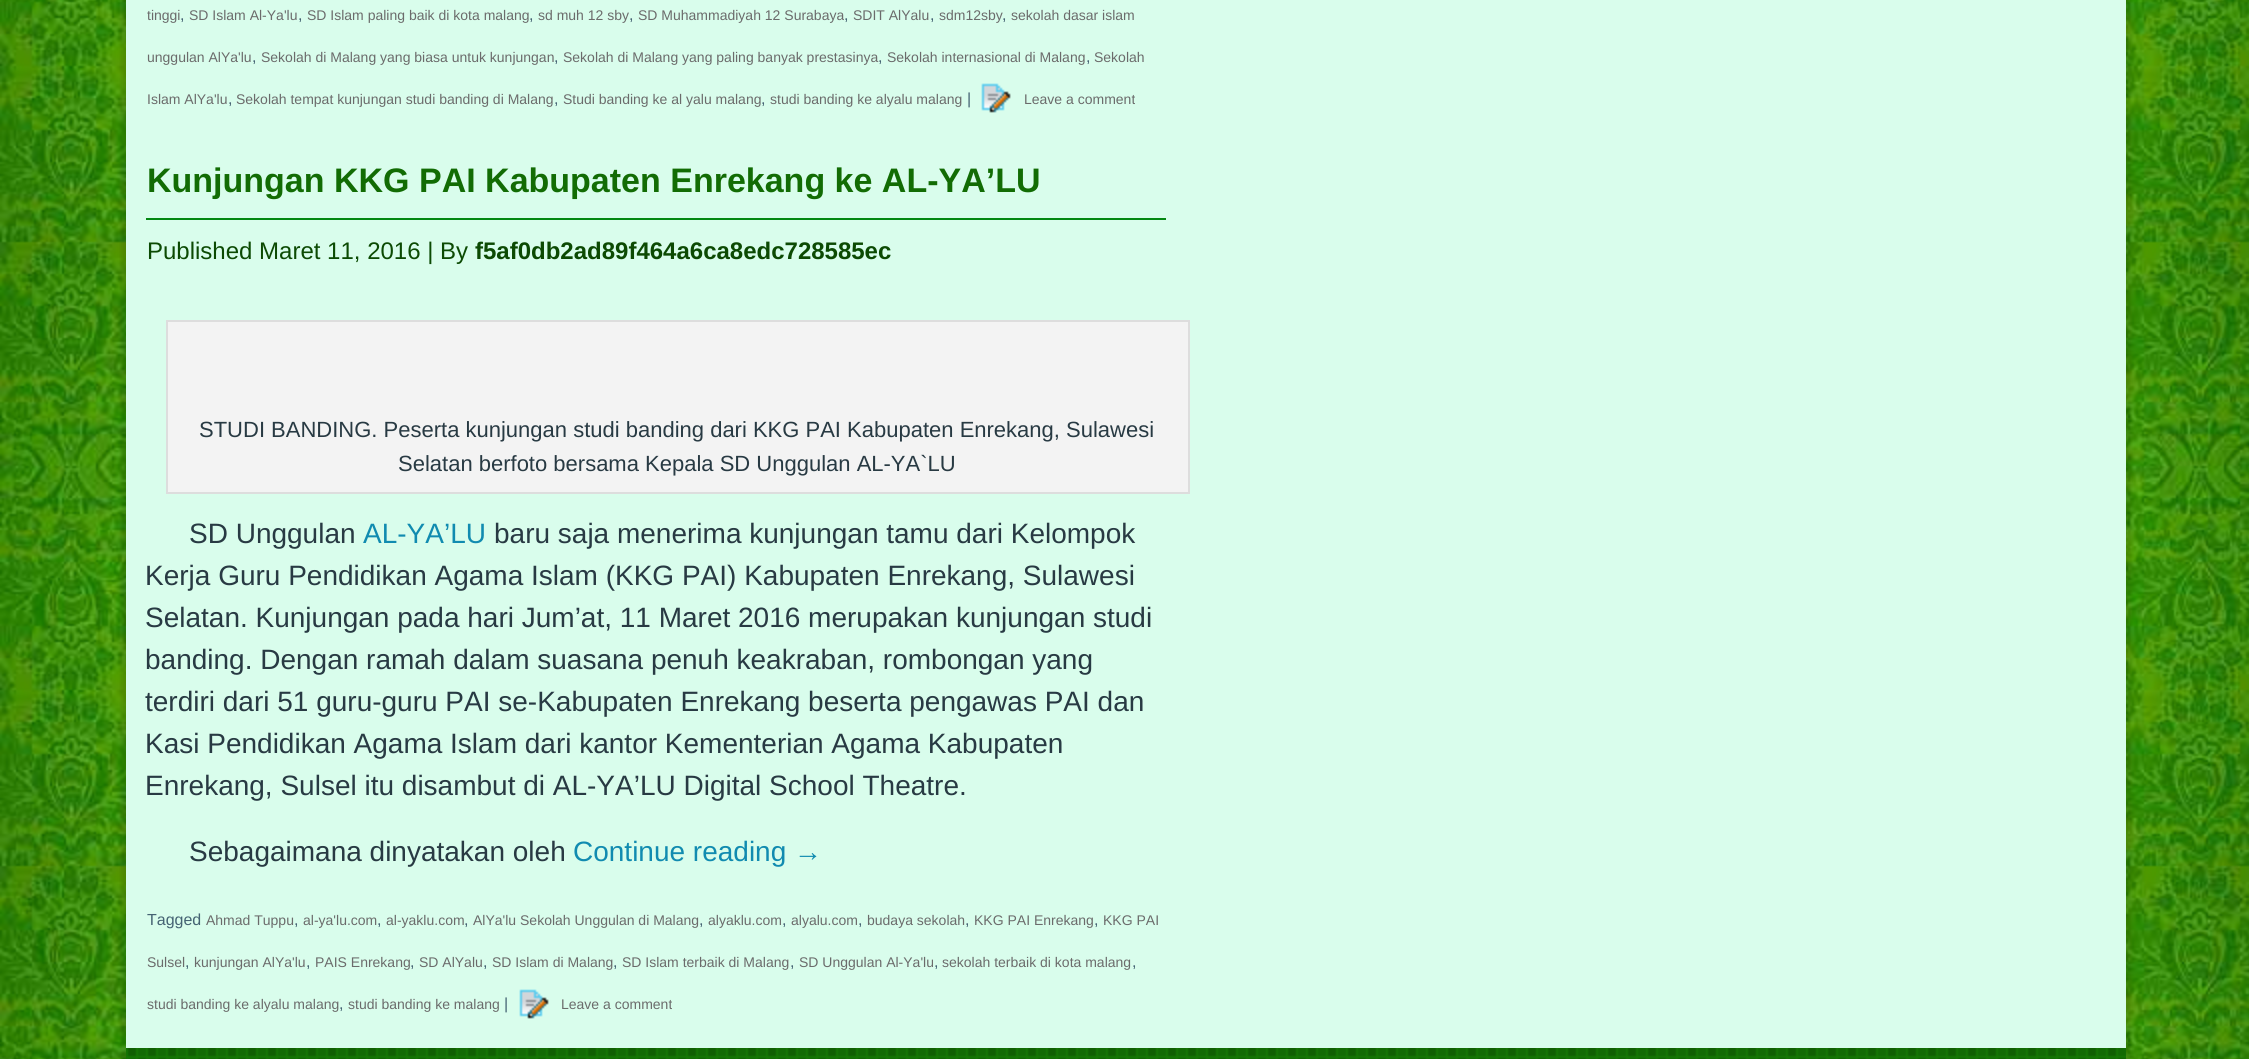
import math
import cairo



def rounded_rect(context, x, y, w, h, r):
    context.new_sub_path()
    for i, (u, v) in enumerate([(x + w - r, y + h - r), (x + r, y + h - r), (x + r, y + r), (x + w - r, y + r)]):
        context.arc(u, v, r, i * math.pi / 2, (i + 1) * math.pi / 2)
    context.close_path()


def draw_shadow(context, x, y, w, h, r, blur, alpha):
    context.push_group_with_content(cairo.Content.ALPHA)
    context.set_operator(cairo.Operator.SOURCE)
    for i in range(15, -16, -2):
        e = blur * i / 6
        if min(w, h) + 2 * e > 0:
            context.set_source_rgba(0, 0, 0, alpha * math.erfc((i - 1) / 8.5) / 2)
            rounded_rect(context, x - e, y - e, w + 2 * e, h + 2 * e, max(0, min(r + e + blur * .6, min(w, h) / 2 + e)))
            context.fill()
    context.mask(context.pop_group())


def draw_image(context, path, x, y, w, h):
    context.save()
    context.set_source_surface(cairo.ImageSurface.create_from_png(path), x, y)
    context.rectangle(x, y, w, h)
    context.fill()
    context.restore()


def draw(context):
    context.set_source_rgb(1, 1, 1)
    context.paint()
    draw_image(context, "images/1.png", 0, 0, 2249, 1059)
    context.set_source_rgb(0, 0, 0)
    draw_shadow(context, 122, -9, 2008, 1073, 0, 3, 0.15)
    context.set_source_rgb(217 / 255, 253 / 255, 236 / 255)
    context.rectangle(126, 0, 2000, 1048)
    context.fill()
    draw_image(context, "images/2.png", 981, 83, 30, 30)
    context.set_source_rgb(3 / 255, 135 / 255, 18 / 255)
    context.rectangle(146, 218, 1020, 2)
    context.fill()
    context.set_source_rgb(243 / 255, 243 / 255, 243 / 255)
    context.rectangle(167, 321, 1022, 172)
    context.fill_preserve()
    context.set_source_rgb(221 / 255, 221 / 255, 221 / 255)
    context.stroke()
    draw_image(context, "images/2.png", 519, 989, 30, 30)
    context.set_source_rgb(18 / 255, 108 / 255, 4 / 255)
    context.rectangle(126, 1048, 2000, 11)
    context.fill()
    draw_image(context, "images/3.png", 126, 1048, 2000, 11)
    context.select_font_face("Liberation Sans")
    context.set_font_size(14)
    context.set_source_rgb(107 / 255, 107 / 255, 107 / 255)
    context.move_to(147, 20)
    context.show_text("tinggi")
    context.set_font_size(16)
    context.set_source_rgb(69 / 255, 99 / 255, 115 / 255)
    context.move_to(180, 20)
    context.show_text(",")
    context.set_font_size(14)
    context.set_source_rgb(107 / 255, 107 / 255, 107 / 255)
    context.move_to(189, 20)
    context.show_text("SD Islam Al-Ya'lu")
    context.set_font_size(16)
    context.set_source_rgb(69 / 255, 99 / 255, 115 / 255)
    context.move_to(298, 20)
    context.show_text(",")
    context.set_font_size(14)
    context.set_source_rgb(107 / 255, 107 / 255, 107 / 255)
    context.move_to(307, 20)
    context.show_text("SD Islam paling baik di kota malang")
    context.set_font_size(16)
    context.set_source_rgb(69 / 255, 99 / 255, 115 / 255)
    context.move_to(529, 20)
    context.show_text(",")
    context.set_font_size(14)
    context.set_source_rgb(107 / 255, 107 / 255, 107 / 255)
    context.move_to(538, 20)
    context.show_text("sd muh 12 sby")
    context.set_font_size(16)
    context.set_source_rgb(69 / 255, 99 / 255, 115 / 255)
    context.move_to(629, 20)
    context.show_text(",")
    context.set_font_size(14)
    context.set_source_rgb(107 / 255, 107 / 255, 107 / 255)
    context.move_to(638, 20)
    context.show_text("SD Muhammadiyah 12 Surabaya")
    context.set_font_size(16)
    context.set_source_rgb(69 / 255, 99 / 255, 115 / 255)
    context.move_to(844, 20)
    context.show_text(",")
    context.set_font_size(14)
    context.set_source_rgb(107 / 255, 107 / 255, 107 / 255)
    context.move_to(853, 20)
    context.show_text("SDIT AlYalu")
    context.set_font_size(16)
    context.set_source_rgb(69 / 255, 99 / 255, 115 / 255)
    context.move_to(930, 20)
    context.show_text(",")
    context.set_font_size(14)
    context.set_source_rgb(107 / 255, 107 / 255, 107 / 255)
    context.move_to(939, 20)
    context.show_text("sdm12sby")
    context.set_font_size(16)
    context.set_source_rgb(69 / 255, 99 / 255, 115 / 255)
    context.move_to(1002, 20)
    context.show_text(",")
    context.set_font_size(14)
    context.set_source_rgb(107 / 255, 107 / 255, 107 / 255)
    context.move_to(1011, 20)
    context.show_text("sekolah dasar islam")
    context.move_to(147, 62)
    context.show_text("unggulan AlYa'lu")
    context.set_font_size(16)
    context.set_source_rgb(69 / 255, 99 / 255, 115 / 255)
    context.move_to(252, 62)
    context.show_text(",")
    context.set_font_size(14)
    context.set_source_rgb(107 / 255, 107 / 255, 107 / 255)
    context.move_to(261, 62)
    context.show_text("Sekolah di Malang yang biasa untuk kunjungan")
    context.set_font_size(16)
    context.set_source_rgb(69 / 255, 99 / 255, 115 / 255)
    context.move_to(554, 62)
    context.show_text(",")
    context.set_font_size(14)
    context.set_source_rgb(107 / 255, 107 / 255, 107 / 255)
    context.move_to(563, 62)
    context.show_text("Sekolah di Malang yang paling banyak prestasinya")
    context.set_font_size(16)
    context.set_source_rgb(69 / 255, 99 / 255, 115 / 255)
    context.move_to(878, 62)
    context.show_text(",")
    context.set_font_size(14)
    context.set_source_rgb(107 / 255, 107 / 255, 107 / 255)
    context.move_to(887, 62)
    context.show_text("Sekolah internasional di Malang")
    context.set_font_size(16)
    context.set_source_rgb(69 / 255, 99 / 255, 115 / 255)
    context.move_to(1086, 62)
    context.show_text(",")
    context.set_font_size(14)
    context.set_source_rgb(107 / 255, 107 / 255, 107 / 255)
    context.move_to(1094, 62)
    context.show_text("Sekolah")
    context.move_to(147, 104)
    context.show_text("Islam AlYa'lu")
    context.set_font_size(16)
    context.set_source_rgb(69 / 255, 99 / 255, 115 / 255)
    context.move_to(228, 104)
    context.show_text(",")
    context.set_font_size(14)
    context.set_source_rgb(107 / 255, 107 / 255, 107 / 255)
    context.move_to(236, 104)
    context.show_text("Sekolah tempat kunjungan studi banding di Malang")
    context.set_font_size(16)
    context.set_source_rgb(69 / 255, 99 / 255, 115 / 255)
    context.move_to(554, 104)
    context.show_text(",")
    context.set_font_size(14)
    context.set_source_rgb(107 / 255, 107 / 255, 107 / 255)
    context.move_to(563, 104)
    context.show_text("Studi banding ke al yalu malang")
    context.set_font_size(16)
    context.set_source_rgb(69 / 255, 99 / 255, 115 / 255)
    context.move_to(761, 104)
    context.show_text(",")
    context.set_font_size(14)
    context.set_source_rgb(107 / 255, 107 / 255, 107 / 255)
    context.move_to(770, 104)
    context.show_text("studi banding ke alyalu malang")
    context.set_font_size(16)
    context.set_source_rgb(69 / 255, 99 / 255, 115 / 255)
    context.move_to(967, 104)
    context.show_text("|")
    context.set_font_size(14)
    context.set_source_rgb(107 / 255, 107 / 255, 107 / 255)
    context.move_to(1024, 104)
    context.show_text("Leave a comment")
    context.select_font_face("Liberation Sans", cairo.FontSlant.NORMAL, cairo.FontWeight.BOLD)
    context.set_font_size(34)
    context.set_source_rgb(18 / 255, 108 / 255, 4 / 255)
    context.move_to(147, 192)
    context.show_text("Kunjungan KKG PAI Kabupaten Enrekang ke AL-YA’LU")
    context.select_font_face("Liberation Sans")
    context.set_font_size(24)
    context.set_source_rgb(12 / 255, 74 / 255, 3 / 255)
    context.move_to(147, 259)
    context.show_text("Published Maret 11, 2016 | By")
    context.select_font_face("Liberation Sans", cairo.FontSlant.NORMAL, cairo.FontWeight.BOLD)
    context.move_to(475, 259)
    context.show_text("f5af0db2ad89f464a6ca8edc728585ec")
    context.select_font_face("Liberation Sans")
    context.set_font_size(22)
    context.set_source_rgb(40 / 255, 58 / 255, 67 / 255)
    context.move_to(199, 437)
    context.show_text("STUDI BANDING. Peserta kunjungan studi banding dari KKG PAI Kabupaten Enrekang, Sulawesi")
    context.move_to(398, 471)
    context.show_text("Selatan berfoto bersama Kepala SD Unggulan AL-YA`LU")
    context.set_font_size(28)
    context.move_to(189, 543)
    context.show_text("SD Unggulan")
    context.set_source_rgb(17 / 255, 139 / 255, 176 / 255)
    context.move_to(363, 543)
    context.show_text("AL-YA’LU")
    context.set_source_rgb(40 / 255, 58 / 255, 67 / 255)
    context.move_to(494, 543)
    context.show_text("baru saja menerima kunjungan tamu dari Kelompok")
    context.move_to(145, 585)
    context.show_text("Kerja Guru Pendidikan Agama Islam (KKG PAI) Kabupaten Enrekang, Sulawesi")
    context.move_to(145, 627)
    context.show_text("Selatan. Kunjungan pada hari Jum’at, 11 Maret 2016 merupakan kunjungan studi")
    context.move_to(145, 669)
    context.show_text("banding. Dengan ramah dalam suasana penuh keakraban, rombongan yang")
    context.move_to(145, 711)
    context.show_text("terdiri dari 51 guru-guru PAI se-Kabupaten Enrekang beserta pengawas PAI dan")
    context.move_to(145, 753)
    context.show_text("Kasi Pendidikan Agama Islam dari kantor Kementerian Agama Kabupaten")
    context.move_to(145, 795)
    context.show_text("Enrekang, Sulsel itu disambut di AL-YA’LU Digital School Theatre.")
    context.move_to(189, 861)
    context.show_text("Sebagaimana dinyatakan oleh")
    context.set_source_rgb(17 / 255, 139 / 255, 176 / 255)
    context.move_to(573, 861)
    context.show_text("Continue reading →")
    context.set_font_size(16)
    context.set_source_rgb(69 / 255, 99 / 255, 115 / 255)
    context.move_to(147, 925)
    context.show_text("Tagged")
    context.set_font_size(14)
    context.set_source_rgb(107 / 255, 107 / 255, 107 / 255)
    context.move_to(206, 925)
    context.show_text("Ahmad Tuppu")
    context.set_font_size(16)
    context.set_source_rgb(69 / 255, 99 / 255, 115 / 255)
    context.move_to(294, 925)
    context.show_text(",")
    context.set_font_size(14)
    context.set_source_rgb(107 / 255, 107 / 255, 107 / 255)
    context.move_to(303, 925)
    context.show_text("al-ya'lu.com")
    context.set_font_size(16)
    context.set_source_rgb(69 / 255, 99 / 255, 115 / 255)
    context.move_to(377, 925)
    context.show_text(",")
    context.set_font_size(14)
    context.set_source_rgb(107 / 255, 107 / 255, 107 / 255)
    context.move_to(386, 925)
    context.show_text("al-yaklu.com")
    context.set_font_size(16)
    context.set_source_rgb(69 / 255, 99 / 255, 115 / 255)
    context.move_to(464, 925)
    context.show_text(",")
    context.set_font_size(14)
    context.set_source_rgb(107 / 255, 107 / 255, 107 / 255)
    context.move_to(473, 925)
    context.show_text("AlYa'lu Sekolah Unggulan di Malang")
    context.set_font_size(16)
    context.set_source_rgb(69 / 255, 99 / 255, 115 / 255)
    context.move_to(699, 925)
    context.show_text(",")
    context.set_font_size(14)
    context.set_source_rgb(107 / 255, 107 / 255, 107 / 255)
    context.move_to(708, 925)
    context.show_text("alyaklu.com")
    context.set_font_size(16)
    context.set_source_rgb(69 / 255, 99 / 255, 115 / 255)
    context.move_to(782, 925)
    context.show_text(",")
    context.set_font_size(14)
    context.set_source_rgb(107 / 255, 107 / 255, 107 / 255)
    context.move_to(791, 925)
    context.show_text("alyalu.com")
    context.set_font_size(16)
    context.set_source_rgb(69 / 255, 99 / 255, 115 / 255)
    context.move_to(858, 925)
    context.show_text(",")
    context.set_font_size(14)
    context.set_source_rgb(107 / 255, 107 / 255, 107 / 255)
    context.move_to(867, 925)
    context.show_text("budaya sekolah")
    context.set_font_size(16)
    context.set_source_rgb(69 / 255, 99 / 255, 115 / 255)
    context.move_to(965, 925)
    context.show_text(",")
    context.set_font_size(14)
    context.set_source_rgb(107 / 255, 107 / 255, 107 / 255)
    context.move_to(974, 925)
    context.show_text("KKG PAI Enrekang")
    context.set_font_size(16)
    context.set_source_rgb(69 / 255, 99 / 255, 115 / 255)
    context.move_to(1094, 925)
    context.show_text(",")
    context.set_font_size(14)
    context.set_source_rgb(107 / 255, 107 / 255, 107 / 255)
    context.move_to(1103, 925)
    context.show_text("KKG PAI")
    context.move_to(147, 967)
    context.show_text("Sulsel")
    context.set_font_size(16)
    context.set_source_rgb(69 / 255, 99 / 255, 115 / 255)
    context.move_to(185, 967)
    context.show_text(",")
    context.set_font_size(14)
    context.set_source_rgb(107 / 255, 107 / 255, 107 / 255)
    context.move_to(194, 967)
    context.show_text("kunjungan AlYa'lu")
    context.set_font_size(16)
    context.set_source_rgb(69 / 255, 99 / 255, 115 / 255)
    context.move_to(306, 967)
    context.show_text(",")
    context.set_font_size(14)
    context.set_source_rgb(107 / 255, 107 / 255, 107 / 255)
    context.move_to(315, 967)
    context.show_text("PAIS Enrekang")
    context.set_font_size(16)
    context.set_source_rgb(69 / 255, 99 / 255, 115 / 255)
    context.move_to(410, 967)
    context.show_text(",")
    context.set_font_size(14)
    context.set_source_rgb(107 / 255, 107 / 255, 107 / 255)
    context.move_to(419, 967)
    context.show_text("SD AlYalu")
    context.set_font_size(16)
    context.set_source_rgb(69 / 255, 99 / 255, 115 / 255)
    context.move_to(483, 967)
    context.show_text(",")
    context.set_font_size(14)
    context.set_source_rgb(107 / 255, 107 / 255, 107 / 255)
    context.move_to(492, 967)
    context.show_text("SD Islam di Malang")
    context.set_font_size(16)
    context.set_source_rgb(69 / 255, 99 / 255, 115 / 255)
    context.move_to(613, 967)
    context.show_text(",")
    context.set_font_size(14)
    context.set_source_rgb(107 / 255, 107 / 255, 107 / 255)
    context.move_to(622, 967)
    context.show_text("SD Islam terbaik di Malang")
    context.set_font_size(16)
    context.set_source_rgb(69 / 255, 99 / 255, 115 / 255)
    context.move_to(790, 967)
    context.show_text(",")
    context.set_font_size(14)
    context.set_source_rgb(107 / 255, 107 / 255, 107 / 255)
    context.move_to(799, 967)
    context.show_text("SD Unggulan Al-Ya'lu")
    context.set_font_size(16)
    context.set_source_rgb(69 / 255, 99 / 255, 115 / 255)
    context.move_to(934, 967)
    context.show_text(",")
    context.set_font_size(14)
    context.set_source_rgb(107 / 255, 107 / 255, 107 / 255)
    context.move_to(942, 967)
    context.show_text("sekolah terbaik di kota malang")
    context.set_font_size(16)
    context.set_source_rgb(69 / 255, 99 / 255, 115 / 255)
    context.move_to(1132, 967)
    context.show_text(",")
    context.set_font_size(14)
    context.set_source_rgb(107 / 255, 107 / 255, 107 / 255)
    context.move_to(147, 1009)
    context.show_text("studi banding ke alyalu malang")
    context.set_font_size(16)
    context.set_source_rgb(69 / 255, 99 / 255, 115 / 255)
    context.move_to(339, 1009)
    context.show_text(",")
    context.set_font_size(14)
    context.set_source_rgb(107 / 255, 107 / 255, 107 / 255)
    context.move_to(348, 1009)
    context.show_text("studi banding ke malang")
    context.set_font_size(16)
    context.set_source_rgb(69 / 255, 99 / 255, 115 / 255)
    context.move_to(504, 1009)
    context.show_text("|")
    context.set_font_size(14)
    context.set_source_rgb(107 / 255, 107 / 255, 107 / 255)
    context.move_to(561, 1009)
    context.show_text("Leave a comment")


surface = cairo.ImageSurface(cairo.Format.RGB24, 2249, 1059)
context = cairo.Context(surface)
options = cairo.FontOptions()
options.set_hint_metrics(cairo.HintMetrics.OFF)
options.set_hint_style(cairo.HintStyle.NONE)
context.set_font_options(options)
context.set_miter_limit(4)
draw(context)
surface.write_to_png("out.png")
